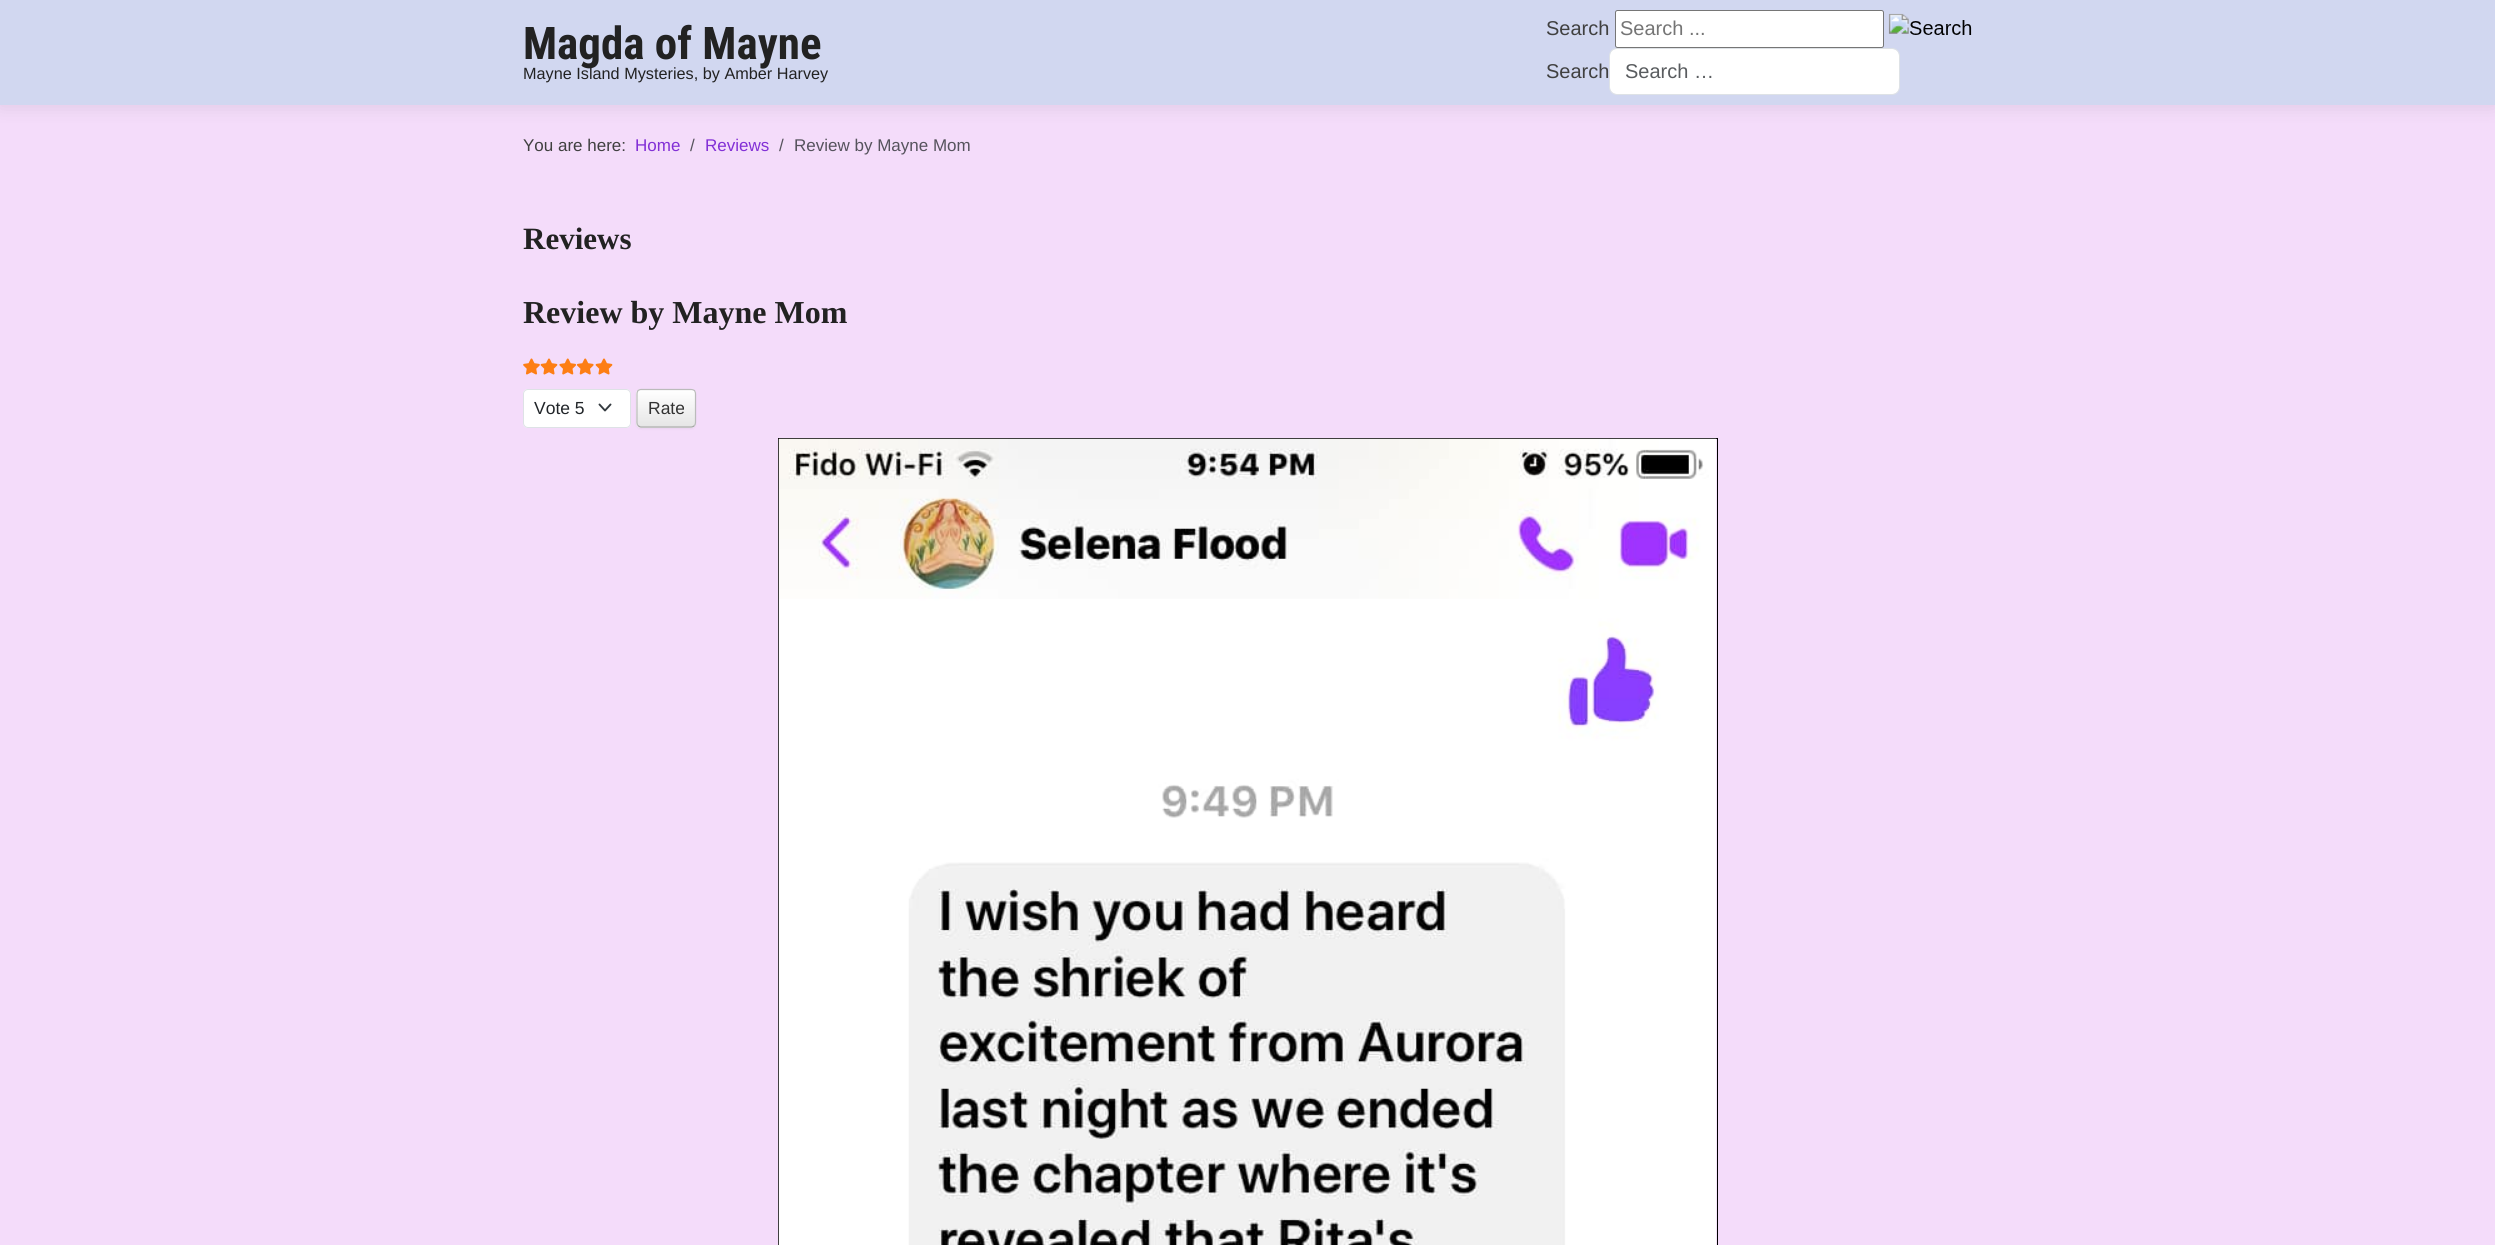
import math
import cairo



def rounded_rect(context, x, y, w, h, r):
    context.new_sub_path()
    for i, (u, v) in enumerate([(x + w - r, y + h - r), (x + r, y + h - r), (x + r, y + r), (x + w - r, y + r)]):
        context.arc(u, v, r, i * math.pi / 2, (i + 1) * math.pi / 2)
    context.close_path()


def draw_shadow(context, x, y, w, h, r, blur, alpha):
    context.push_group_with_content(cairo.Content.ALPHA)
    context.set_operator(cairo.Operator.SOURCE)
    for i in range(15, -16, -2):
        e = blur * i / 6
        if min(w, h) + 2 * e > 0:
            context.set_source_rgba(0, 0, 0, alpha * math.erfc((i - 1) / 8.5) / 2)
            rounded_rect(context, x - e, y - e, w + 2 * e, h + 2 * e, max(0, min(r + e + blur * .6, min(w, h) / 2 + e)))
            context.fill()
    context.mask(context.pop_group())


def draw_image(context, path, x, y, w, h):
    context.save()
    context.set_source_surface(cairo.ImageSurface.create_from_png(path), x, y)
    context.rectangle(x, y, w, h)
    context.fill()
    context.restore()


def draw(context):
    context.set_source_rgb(244 / 255, 220 / 255, 250 / 255)
    context.paint()
    context.set_source_rgb(0, 0, 0)
    draw_shadow(context, 0, 1, 2495, 105, 0, 9.5, 0.1)
    context.set_source_rgb(209 / 255, 215 / 255, 240 / 255)
    context.rectangle(0, 0, 2495, 105)
    context.fill()
    context.set_source_rgb(1, 1, 1)
    rounded_rect(context, 1615.5, 10.5, 268, 37, 2)
    context.fill_preserve()
    context.set_source_rgb(118 / 255, 118 / 255, 118 / 255)
    context.set_line_width(1)
    context.stroke()
    draw_image(context, "images/1.png", 1888, 13, 84, 22)
    context.set_source_rgb(1, 1, 1)
    rounded_rect(context, 1610, 49, 289, 45, 6)
    context.fill()
    rounded_rect(context, 1609.5, 48.5, 290, 46, 7.5)
    context.set_source_rgb(222 / 255, 226 / 255, 230 / 255)
    context.stroke()
    draw_image(context, "images/2.png", 523, 358, 17, 17)
    draw_image(context, "images/3.png", 540, 358, 18, 17)
    draw_image(context, "images/4.png", 559, 358, 17, 17)
    draw_image(context, "images/5.png", 576, 358, 18, 17)
    draw_image(context, "images/3.png", 595, 358, 18, 17)
    context.set_source_rgb(1, 1, 1)
    rounded_rect(context, 523, 389, 108, 39, 5)
    context.fill()
    context.new_path()
    context.move_to(599.5, 404.5)
    context.line_to(605, 410.5)
    context.line_to(610.5, 404.5)
    context.set_source_rgb(52 / 255, 58 / 255, 64 / 255)
    context.set_line_width(1.9)
    context.set_line_cap(cairo.LineCap.ROUND)
    context.set_line_join(cairo.LineJoin.ROUND)
    context.stroke()
    rounded_rect(context, 523.5, 389.5, 107, 38, 4.5)
    context.set_source_rgb(222 / 255, 226 / 255, 230 / 255)
    context.set_line_width(1)
    context.set_line_cap(cairo.LineCap.BUTT)
    context.set_line_join(cairo.LineJoin.MITER)
    context.stroke()
    context.set_source_rgb(0, 0, 0)
    draw_shadow(context, 636, 390, 60, 39, 5, 1, 0.05)
    context.set_source_rgb(245 / 255, 245 / 255, 245 / 255)
    rounded_rect(context, 636, 389, 60, 39, 5)
    context.fill()
    context.save()
    rounded_rect(context, 636, 389, 60, 39, 5)
    context.clip()
    gradient = cairo.LinearGradient(666, 390, 666, 426)
    gradient.add_color_stop_rgba(0, 1, 1, 1, 1)
    gradient.add_color_stop_rgba(1, 230 / 255, 230 / 255, 230 / 255, 1)
    context.set_source(gradient)
    context.rectangle(636, 390, 60, 36)
    context.fill()
    context.restore()
    context.set_source_rgb(1, 1, 1)
    context.new_path()
    context.move_to(641, 391)
    context.line_to(691, 391)
    context.curve_to(693, 391, 695, 393, 695, 395)
    context.curve_to(695, 388, 688, 390, 683, 390)
    context.line_to(650, 390)
    context.curve_to(645, 390, 638, 388, 638, 395)
    context.curve_to(638, 393, 639, 391, 641, 391)
    context.close_path()
    context.fill()
    context.new_path()
    context.move_to(694.5, 425.5)
    context.curve_to(693.5, 426.5, 692.5, 427, 691, 427)
    context.line_to(641, 427)
    context.curve_to(640, 427, 639, 426.5, 638, 425.5)
    context.set_source_rgb(162 / 255, 162 / 255, 162 / 255)
    context.set_line_width(1.2)
    context.stroke()
    context.new_path()
    context.move_to(638, 425.5)
    context.curve_to(637.5, 425, 637, 423.5, 637, 422.5)
    context.line_to(637, 394)
    context.curve_to(637, 392.5, 637.5, 391.5, 638, 390.5)
    context.curve_to(639, 390, 640, 389.5, 641, 389.5)
    context.line_to(691, 389.5)
    context.curve_to(692.5, 389.5, 693.5, 390, 694.5, 390.5)
    context.curve_to(695, 391.5, 695.5, 392.5, 695.5, 394)
    context.line_to(695.5, 422.5)
    context.curve_to(695.5, 423.5, 695, 425, 694.5, 425.5)
    context.set_source_rgb(187 / 255, 187 / 255, 187 / 255)
    context.stroke()
    context.rectangle(778.5, 438.5, 939, 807)
    context.set_source_rgb(0, 0, 0)
    context.set_line_width(1)
    context.stroke()
    draw_image(context, "images/6.png", 778, 438, 939, 807)
    context.select_font_face("Roboto Condensed", cairo.FontSlant.NORMAL, cairo.FontWeight.BOLD)
    context.set_font_size(45)
    context.set_source_rgb(34 / 255, 34 / 255, 34 / 255)
    context.move_to(523, 59)
    context.show_text("Magda of Mayne")
    context.select_font_face("Liberation Sans")
    context.set_font_size(16.25)
    context.move_to(523, 79)
    context.show_text("Mayne Island Mysteries, by Amber Harvey")
    context.set_font_size(20)
    context.set_source_rgb(64 / 255, 64 / 255, 64 / 255)
    context.move_to(1546, 35)
    context.show_text("Search")
    context.set_source_rgb(117 / 255, 117 / 255, 117 / 255)
    context.move_to(1620, 35)
    context.show_text("Search ...")
    context.set_source_rgb(64 / 255, 64 / 255, 64 / 255)
    context.move_to(1546, 78)
    context.show_text("Search")
    context.set_source_rgb(89 / 255, 92 / 255, 95 / 255)
    context.move_to(1625, 78)
    context.show_text("Search …")
    context.set_font_size(17)
    context.set_source_rgb(64 / 255, 64 / 255, 64 / 255)
    context.move_to(523, 151)
    context.show_text("You are here:")
    context.set_source_rgb(130 / 255, 47 / 255, 214 / 255)
    context.move_to(635, 151)
    context.show_text("Home")
    context.set_source_rgb(86 / 255, 83 / 255, 93 / 255)
    context.move_to(690, 151)
    context.show_text("/")
    context.set_source_rgb(130 / 255, 47 / 255, 214 / 255)
    context.move_to(705, 151)
    context.show_text("Reviews")
    context.set_source_rgb(86 / 255, 83 / 255, 93 / 255)
    context.move_to(779, 151)
    context.show_text("/")
    context.move_to(794, 151)
    context.show_text("Review by Mayne Mom")
    context.select_font_face("Liberation Serif", cairo.FontSlant.NORMAL, cairo.FontWeight.BOLD)
    context.set_font_size(31)
    context.set_source_rgb(34 / 255, 34 / 255, 34 / 255)
    context.move_to(523, 249)
    context.show_text("Reviews")
    context.set_font_size(32)
    context.move_to(523, 323)
    context.show_text("Review by Mayne Mom")
    context.select_font_face("Liberation Sans")
    context.set_font_size(17.5)
    context.set_source_rgb(33 / 255, 37 / 255, 41 / 255)
    context.move_to(534, 414)
    context.show_text("Vote 5")
    context.set_source_rgb(51 / 255, 51 / 255, 51 / 255)
    context.move_to(648, 414)
    context.show_text("Rate")


surface = cairo.ImageSurface(cairo.Format.RGB24, 2495, 1245)
context = cairo.Context(surface)
options = cairo.FontOptions()
options.set_hint_metrics(cairo.HintMetrics.OFF)
options.set_hint_style(cairo.HintStyle.NONE)
context.set_font_options(options)
context.set_miter_limit(4)
draw(context)
surface.write_to_png("out.png")
